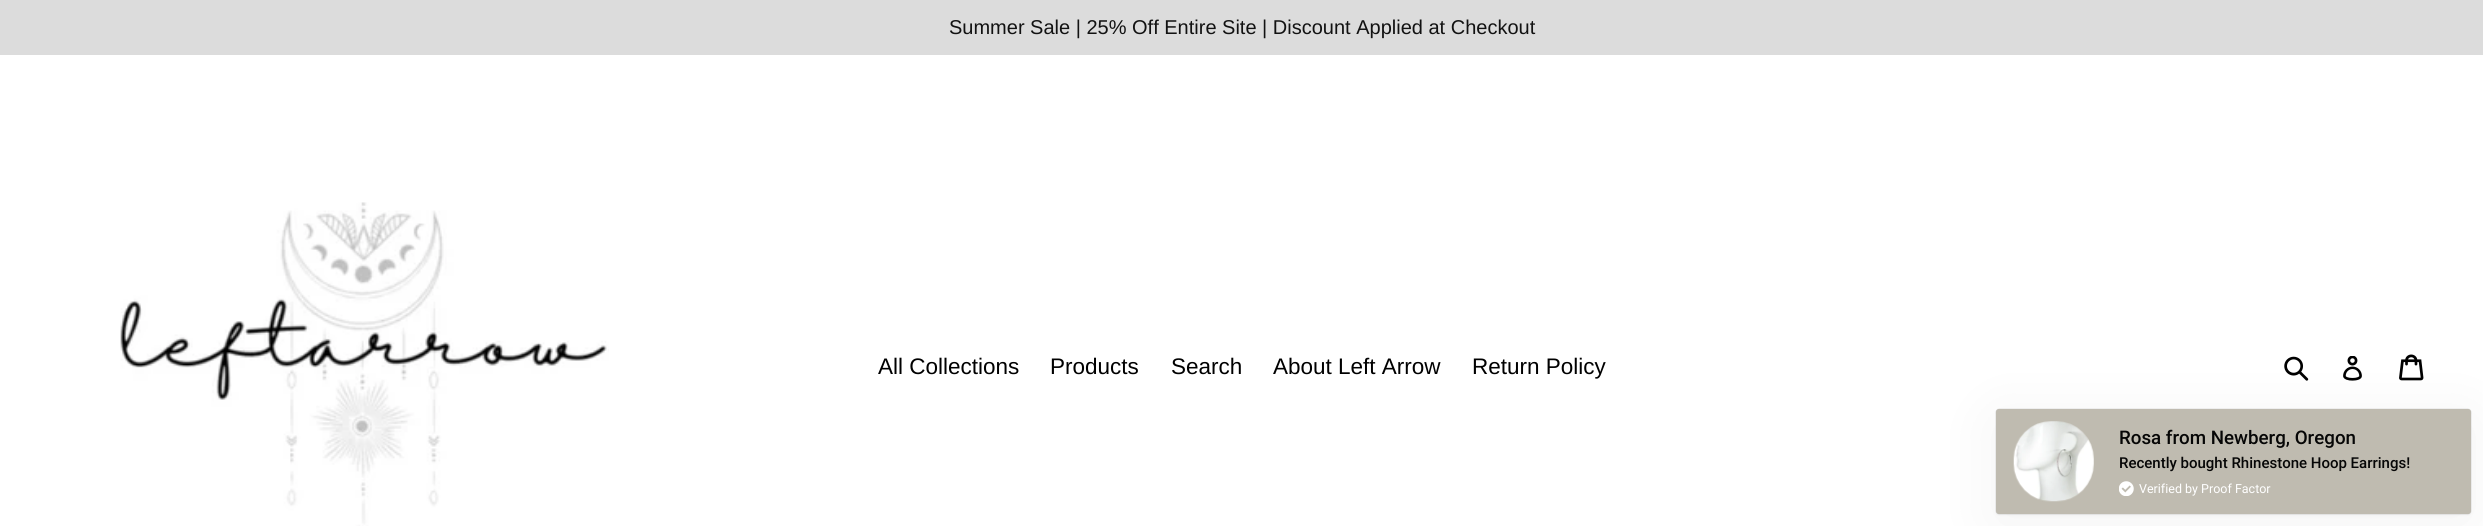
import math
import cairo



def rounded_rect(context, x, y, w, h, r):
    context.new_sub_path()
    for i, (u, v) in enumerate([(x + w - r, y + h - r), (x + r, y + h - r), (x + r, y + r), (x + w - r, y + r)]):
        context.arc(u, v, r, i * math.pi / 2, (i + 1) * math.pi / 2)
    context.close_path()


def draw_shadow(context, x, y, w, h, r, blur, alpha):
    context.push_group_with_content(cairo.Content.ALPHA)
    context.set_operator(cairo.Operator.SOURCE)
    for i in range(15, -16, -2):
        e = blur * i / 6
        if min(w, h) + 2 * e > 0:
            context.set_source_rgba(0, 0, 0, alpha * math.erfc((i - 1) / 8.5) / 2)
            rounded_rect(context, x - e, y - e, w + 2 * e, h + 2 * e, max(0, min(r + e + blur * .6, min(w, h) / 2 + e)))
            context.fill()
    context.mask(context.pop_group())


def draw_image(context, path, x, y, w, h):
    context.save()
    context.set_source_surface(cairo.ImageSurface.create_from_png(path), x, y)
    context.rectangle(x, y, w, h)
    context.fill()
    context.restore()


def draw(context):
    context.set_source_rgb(1, 1, 1)
    context.paint()
    context.set_source_rgb(220 / 255, 220 / 255, 220 / 255)
    context.rectangle(0, 0, 2483, 55)
    context.fill()
    draw_image(context, "images/1.png", 120, 202, 489, 324)
    draw_image(context, "images/2.png", 2284, 356, 25, 25)
    draw_image(context, "images/3.png", 2343, 356, 19, 25)
    draw_image(context, "images/4.png", 2399, 354, 25, 27)
    context.set_source_rgb(0, 0, 0)
    draw_shadow(context, 1996, 419, 475, 105, 3, 31, 0.05)
    draw_shadow(context, 1996, 410, 475, 105, 3, 1, 0.05)
    draw_shadow(context, 1996, 409, 475, 105, 3, 0.5, 0.2)
    context.set_source_rgb(191 / 255, 187 / 255, 176 / 255)
    rounded_rect(context, 1996, 409, 475, 105, 3)
    context.fill()
    draw_image(context, "images/5.png", 2013, 421, 81, 81)
    draw_image(context, "images/6.png", 2119, 481, 15, 15)
    context.select_font_face("Liberation Sans")
    context.set_font_size(20)
    context.set_source_rgb(18 / 255, 18 / 255, 18 / 255)
    context.move_to(949, 34)
    context.show_text("Summer Sale | 25% Off Entire Site | Discount Applied at Checkout")
    context.set_font_size(22.5)
    context.set_source_rgb(0, 0, 0)
    context.move_to(878, 374)
    context.show_text("All Collections")
    context.move_to(1050, 374)
    context.show_text("Products")
    context.move_to(1171, 374)
    context.show_text("Search")
    context.move_to(1273, 374)
    context.show_text("About Left Arrow")
    context.move_to(1472, 374)
    context.show_text("Return Policy")
    context.select_font_face("Roboto Medium")
    context.set_font_size(18.75)
    context.set_source_rgb(6 / 255, 6 / 255, 6 / 255)
    context.move_to(2119, 444)
    context.show_text("Rosa from Newberg, Oregon")
    context.set_font_size(15)
    context.move_to(2119, 468)
    context.show_text("Recently bought Rhinestone Hoop Earrings!")
    context.select_font_face("Roboto")
    context.set_font_size(12.5)
    context.set_source_rgb(1, 1, 1)
    context.move_to(2139, 493)
    context.show_text("Verified by Proof Factor")


surface = cairo.ImageSurface(cairo.Format.RGB24, 2483, 526)
context = cairo.Context(surface)
options = cairo.FontOptions()
options.set_hint_metrics(cairo.HintMetrics.OFF)
options.set_hint_style(cairo.HintStyle.NONE)
context.set_font_options(options)
context.set_miter_limit(4)
draw(context)
surface.write_to_png("out.png")
